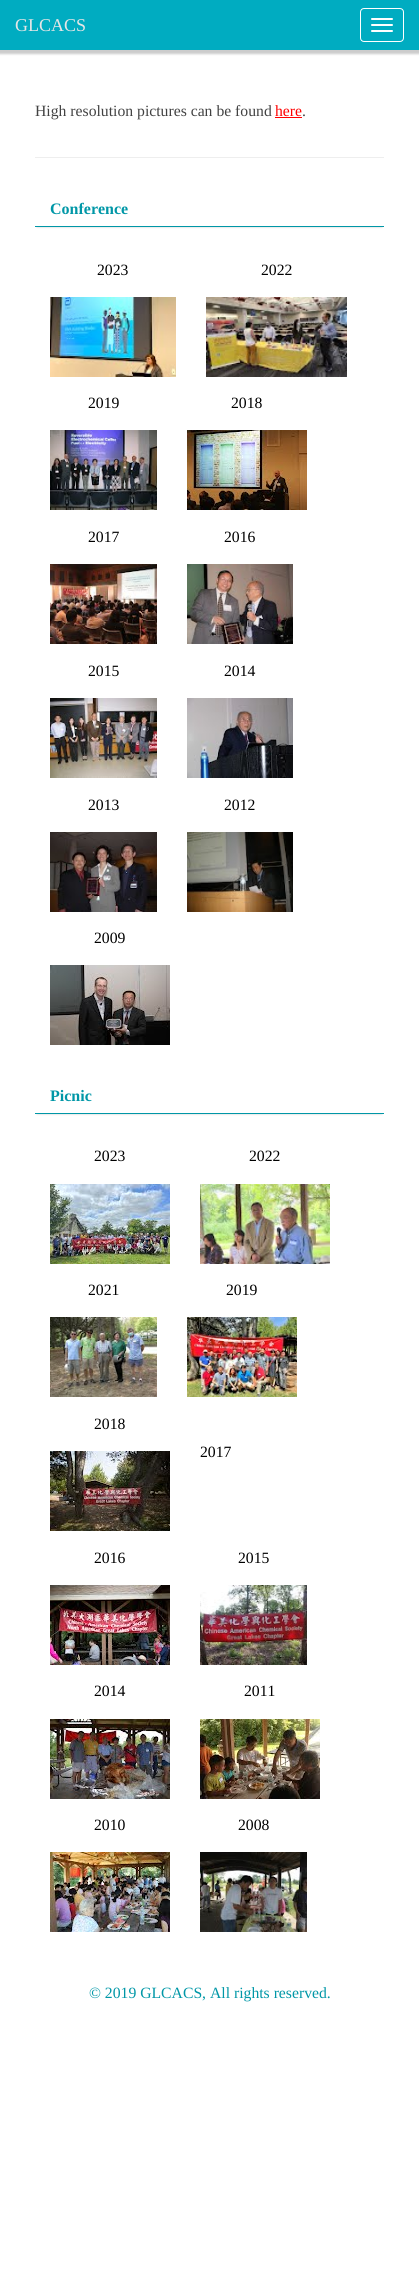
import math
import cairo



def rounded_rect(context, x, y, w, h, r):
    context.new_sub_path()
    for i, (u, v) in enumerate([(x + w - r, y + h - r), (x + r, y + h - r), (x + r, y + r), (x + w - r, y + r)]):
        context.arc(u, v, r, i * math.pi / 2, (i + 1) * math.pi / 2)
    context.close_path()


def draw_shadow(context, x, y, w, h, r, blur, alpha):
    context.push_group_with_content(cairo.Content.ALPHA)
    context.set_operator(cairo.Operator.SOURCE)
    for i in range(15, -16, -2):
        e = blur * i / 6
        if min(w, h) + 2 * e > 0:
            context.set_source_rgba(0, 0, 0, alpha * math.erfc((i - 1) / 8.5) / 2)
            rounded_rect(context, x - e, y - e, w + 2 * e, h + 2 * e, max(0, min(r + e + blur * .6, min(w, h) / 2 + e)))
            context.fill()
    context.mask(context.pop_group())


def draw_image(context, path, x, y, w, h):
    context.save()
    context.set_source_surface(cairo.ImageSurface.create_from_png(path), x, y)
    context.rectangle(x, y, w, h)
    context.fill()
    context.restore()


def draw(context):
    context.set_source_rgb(1, 1, 1)
    context.paint()
    context.set_source_rgb(204 / 255, 204 / 255, 204 / 255)
    draw_shadow(context, -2, -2, 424, 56, 0, 1, 1)
    context.set_source_rgb(0, 172 / 255, 193 / 255)
    context.rectangle(0, 0, 419, 50)
    context.fill()
    rounded_rect(context, 360.5, 8.5, 43, 33, 3.5)
    context.set_source_rgb(1, 1, 1)
    context.set_line_width(1)
    context.stroke()
    rounded_rect(context, 371, 18, 22, 2, 1)
    context.fill()
    rounded_rect(context, 371, 24, 22, 2, 1)
    context.fill()
    rounded_rect(context, 371, 30, 22, 2, 1)
    context.fill()
    context.set_source_rgb(1, 0, 0)
    context.rectangle(275, 117, 27, 1)
    context.fill()
    context.set_source_rgb(238 / 255, 238 / 255, 238 / 255)
    context.rectangle(35, 157, 349, 1)
    context.fill()
    context.save()
    context.rectangle(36, 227, 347, 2)
    context.clip()
    context.set_source_rgb(204 / 255, 204 / 255, 204 / 255)
    draw_shadow(context, 37, 197, 345, 30, 0, 1, 1)
    context.restore()
    context.set_source_rgb(0, 151 / 255, 167 / 255)
    context.rectangle(35, 226, 349, 1)
    context.fill()
    draw_image(context, "images/1.png", 50, 297, 126, 80)
    draw_image(context, "images/2.png", 206, 297, 141, 80)
    draw_image(context, "images/3.png", 50, 430, 107, 80)
    draw_image(context, "images/4.png", 187, 430, 120, 80)
    draw_image(context, "images/5.png", 50, 564, 107, 80)
    draw_image(context, "images/6.png", 187, 564, 106, 80)
    draw_image(context, "images/7.png", 50, 698, 107, 80)
    draw_image(context, "images/8.png", 187, 698, 106, 80)
    draw_image(context, "images/9.png", 50, 832, 107, 80)
    draw_image(context, "images/10.png", 187, 832, 106, 80)
    draw_image(context, "images/11.png", 50, 965, 120, 80)
    context.save()
    context.rectangle(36, 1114, 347, 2)
    context.clip()
    context.set_source_rgb(204 / 255, 204 / 255, 204 / 255)
    draw_shadow(context, 37, 1084, 345, 30, 0, 1, 1)
    context.restore()
    context.rectangle(35, 1113, 349, 1)
    context.fill()
    draw_image(context, "images/12.png", 50, 1184, 120, 80)
    draw_image(context, "images/13.png", 200, 1184, 130, 80)
    draw_image(context, "images/14.png", 50, 1317, 107, 80)
    draw_image(context, "images/15.png", 187, 1317, 110, 80)
    draw_image(context, "images/16.png", 50, 1451, 120, 80)
    draw_image(context, "images/17.png", 50, 1585, 120, 80)
    draw_image(context, "images/18.png", 200, 1585, 107, 80)
    draw_image(context, "images/19.png", 50, 1719, 120, 80)
    draw_image(context, "images/20.png", 200, 1719, 120, 80)
    draw_image(context, "images/21.png", 50, 1852, 120, 80)
    draw_image(context, "images/22.png", 200, 1852, 107, 80)
    context.select_font_face("Liberation Serif")
    context.set_font_size(18)
    context.set_source_rgb(230 / 255, 230 / 255, 230 / 255)
    context.move_to(15, 31)
    context.show_text("GLCACS")
    context.set_font_size(15.7)
    context.set_source_rgb(66 / 255, 66 / 255, 66 / 255)
    context.move_to(35, 116)
    context.show_text("High resolution pictures can be found")
    context.set_source_rgb(1, 0, 0)
    context.move_to(275, 116)
    context.show_text("here")
    context.set_source_rgb(66 / 255, 66 / 255, 66 / 255)
    context.move_to(302, 116)
    context.show_text(".")
    context.select_font_face("Liberation Serif", cairo.FontSlant.NORMAL, cairo.FontWeight.BOLD)
    context.set_font_size(16)
    context.set_source_rgb(0, 151 / 255, 167 / 255)
    context.move_to(50, 214)
    context.show_text("Conference")
    context.select_font_face("Liberation Serif")
    context.set_font_size(15.7)
    context.set_source_rgb(0, 0, 0)
    context.move_to(97, 275)
    context.show_text("2023")
    context.move_to(261, 275)
    context.show_text("2022")
    context.move_to(88, 408)
    context.show_text("2019")
    context.move_to(231, 408)
    context.show_text("2018")
    context.move_to(88, 542)
    context.show_text("2017")
    context.move_to(224, 542)
    context.show_text("2016")
    context.move_to(88, 676)
    context.show_text("2015")
    context.move_to(224, 676)
    context.show_text("2014")
    context.move_to(88, 810)
    context.show_text("2013")
    context.move_to(224, 810)
    context.show_text("2012")
    context.move_to(94, 943)
    context.show_text("2009")
    context.select_font_face("Liberation Serif", cairo.FontSlant.NORMAL, cairo.FontWeight.BOLD)
    context.set_font_size(16)
    context.set_source_rgb(0, 151 / 255, 167 / 255)
    context.move_to(50, 1101)
    context.show_text("Picnic")
    context.select_font_face("Liberation Serif")
    context.set_font_size(15.7)
    context.set_source_rgb(0, 0, 0)
    context.move_to(94, 1161)
    context.show_text("2023")
    context.move_to(249, 1161)
    context.show_text("2022")
    context.move_to(88, 1295)
    context.show_text("2021")
    context.move_to(226, 1295)
    context.show_text("2019")
    context.move_to(94, 1429)
    context.show_text("2018")
    context.move_to(200, 1457)
    context.show_text("2017")
    context.move_to(94, 1563)
    context.show_text("2016")
    context.move_to(238, 1563)
    context.show_text("2015")
    context.move_to(94, 1696)
    context.show_text("2014")
    context.move_to(244, 1696)
    context.show_text("2011")
    context.move_to(94, 1830)
    context.show_text("2010")
    context.move_to(238, 1830)
    context.show_text("2008")
    context.set_source_rgb(0, 151 / 255, 167 / 255)
    context.move_to(89, 1998)
    context.show_text("© 2019 GLCACS, All rights reserved.")


surface = cairo.ImageSurface(cairo.Format.RGB24, 419, 2290)
context = cairo.Context(surface)
options = cairo.FontOptions()
options.set_hint_metrics(cairo.HintMetrics.OFF)
options.set_hint_style(cairo.HintStyle.NONE)
context.set_font_options(options)
context.set_miter_limit(4)
draw(context)
surface.write_to_png("out.png")
